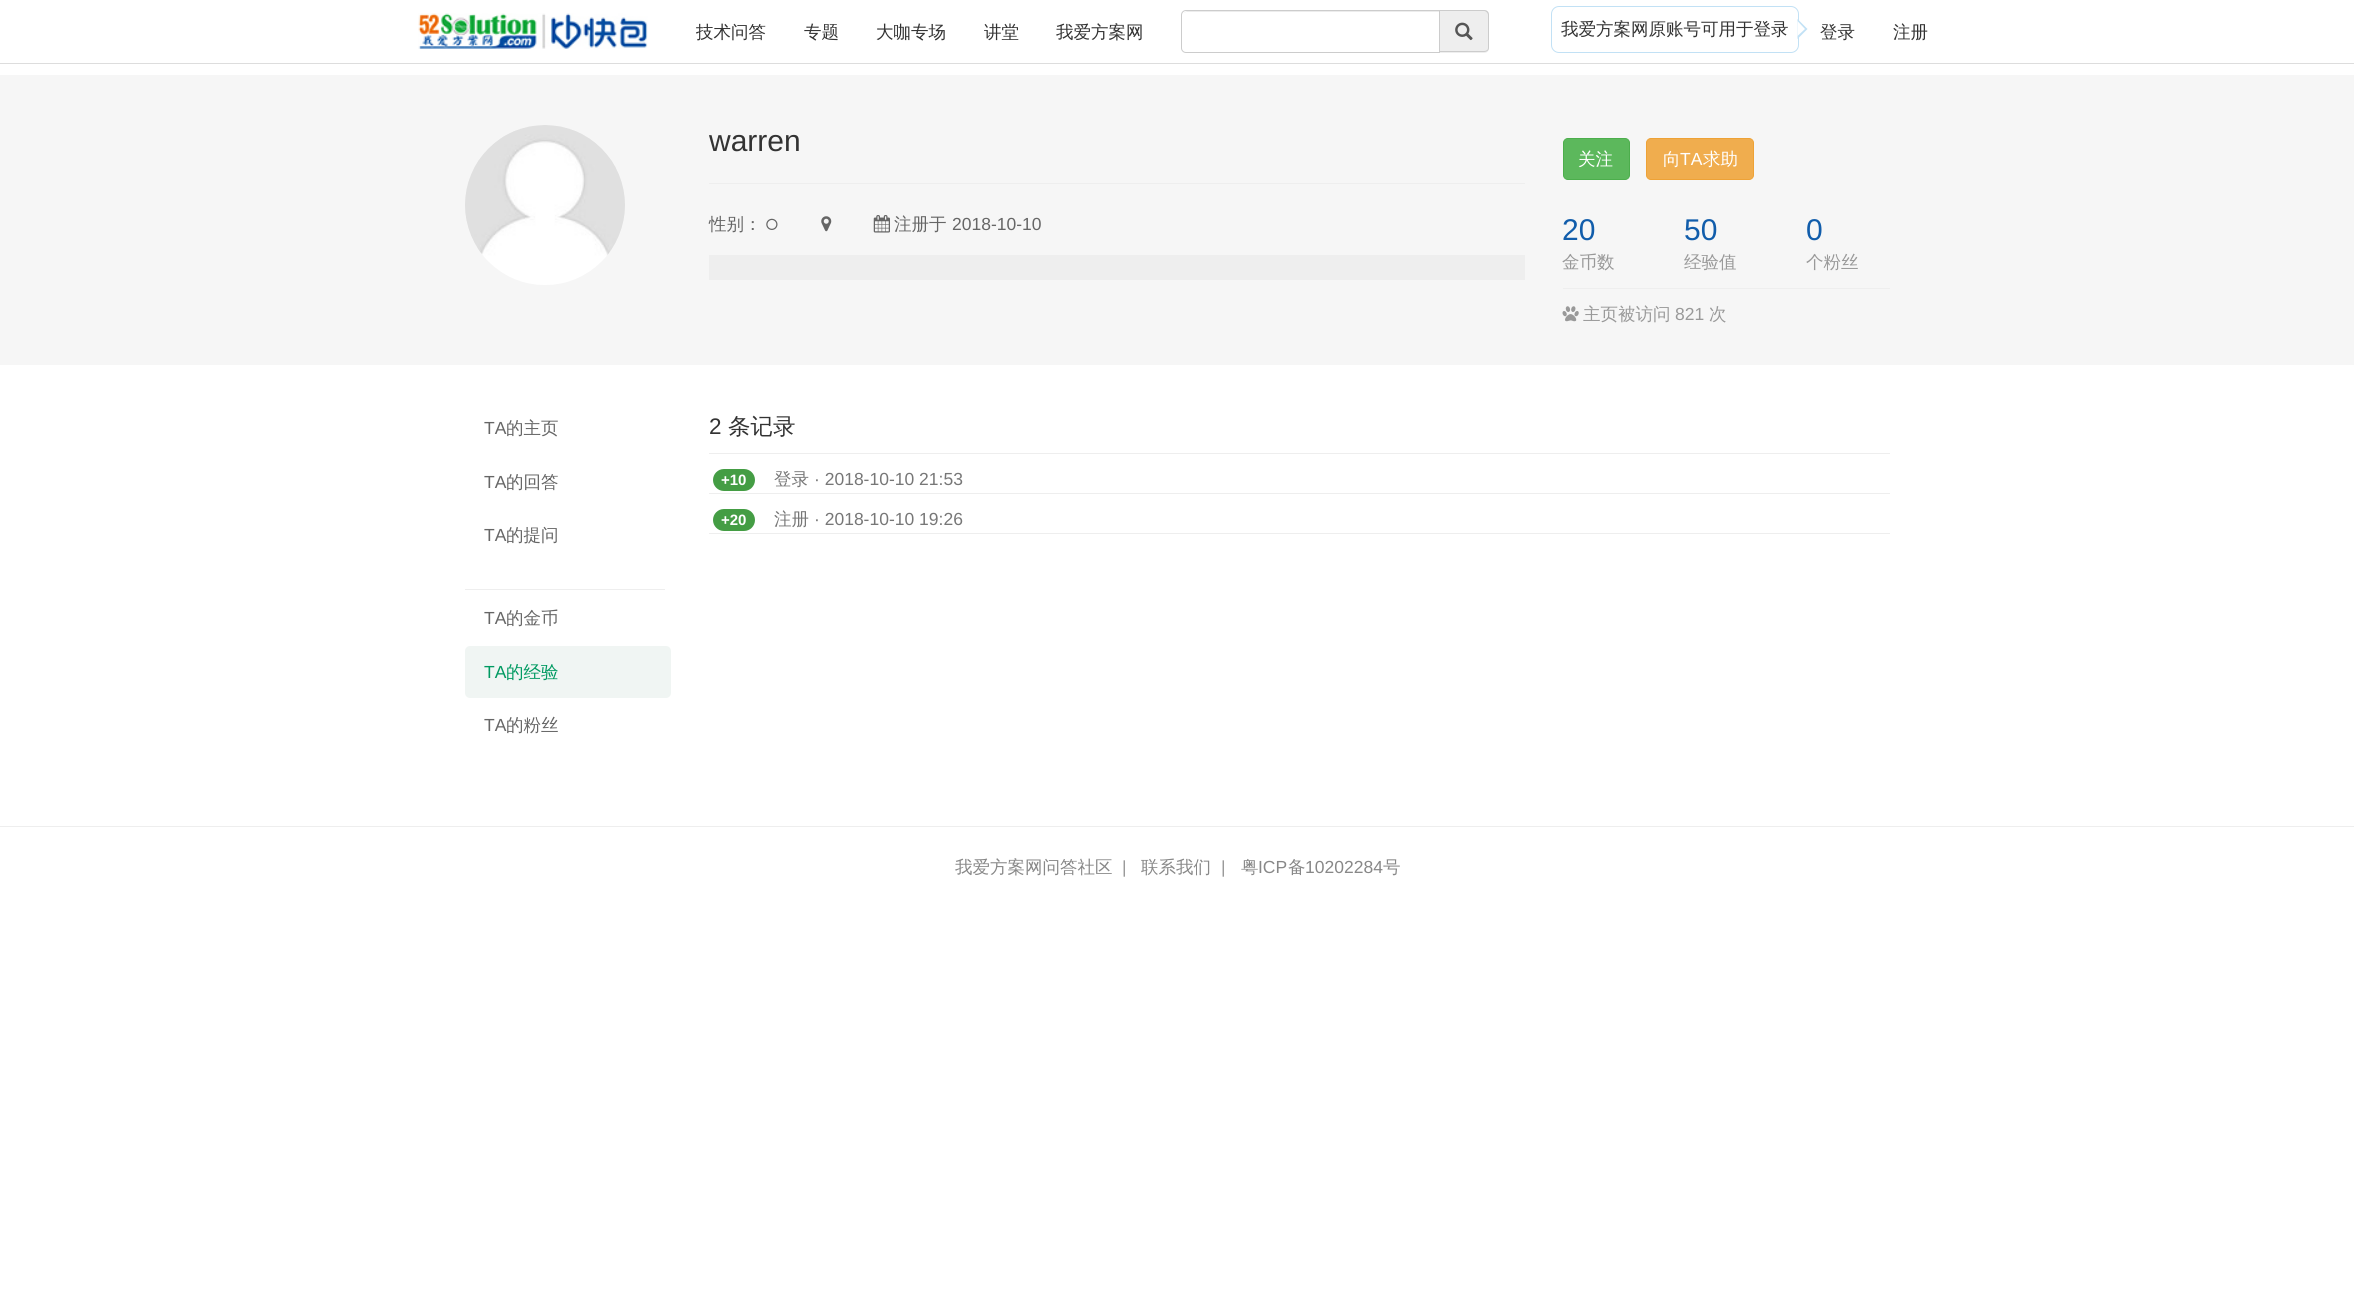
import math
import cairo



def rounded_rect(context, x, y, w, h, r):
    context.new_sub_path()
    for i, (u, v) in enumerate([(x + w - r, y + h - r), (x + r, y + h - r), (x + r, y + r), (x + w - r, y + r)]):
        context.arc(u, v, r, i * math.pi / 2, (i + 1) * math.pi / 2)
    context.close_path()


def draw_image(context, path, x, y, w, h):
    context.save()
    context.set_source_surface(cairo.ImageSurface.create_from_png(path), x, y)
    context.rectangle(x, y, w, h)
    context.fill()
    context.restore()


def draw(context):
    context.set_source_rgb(1, 1, 1)
    context.paint()
    context.set_source_rgb(221 / 255, 221 / 255, 221 / 255)
    context.rectangle(0, 63, 2354, 1)
    context.fill()
    draw_image(context, "images/1.png", 418, 13, 230, 36)
    context.set_source_rgb(236 / 255, 236 / 255, 236 / 255)
    context.new_path()
    context.move_to(1186, 12)
    context.line_to(1439, 12)
    context.line_to(1439, 11)
    context.line_to(1187, 11)
    context.line_to(1185, 12)
    context.line_to(1184, 13)
    context.close_path()
    context.fill()
    context.new_path()
    context.move_to(1186, 10.5)
    context.line_to(1439.5, 10.5)
    context.line_to(1439.5, 52.5)
    context.line_to(1186, 52.5)
    context.curve_to(1183.5, 52.5, 1181.5, 50.5, 1181.5, 48)
    context.line_to(1181.5, 15)
    context.curve_to(1181.5, 12.5, 1183.5, 10.5, 1186, 10.5)
    context.close_path()
    context.set_source_rgb(204 / 255, 204 / 255, 204 / 255)
    context.set_line_width(1)
    context.stroke()
    context.set_source_rgb(238 / 255, 238 / 255, 238 / 255)
    context.new_path()
    context.move_to(1440, 10)
    context.line_to(1484, 10)
    context.curve_to(1487, 10, 1489, 12, 1489, 15)
    context.line_to(1489, 48)
    context.curve_to(1489, 51, 1487, 53, 1484, 53)
    context.line_to(1440, 53)
    context.close_path()
    context.fill()
    context.set_source_rgb(204 / 255, 204 / 255, 204 / 255)
    context.set_fill_rule(cairo.FillRule.EVEN_ODD)
    context.new_path()
    context.move_to(1440, 10)
    context.line_to(1484, 10)
    context.curve_to(1487, 10, 1489, 12, 1489, 15)
    context.line_to(1489, 48)
    context.curve_to(1489, 50, 1487, 52, 1484, 52)
    context.line_to(1440, 52)
    context.close_path()
    context.move_to(1440, 11)
    context.line_to(1484, 11)
    context.curve_to(1486, 11, 1488, 13, 1488, 15)
    context.line_to(1488, 48)
    context.curve_to(1488, 50, 1486, 51, 1484, 51)
    context.line_to(1440, 51)
    context.close_path()
    context.fill()
    draw_image(context, "images/2.png", 1455, 22, 18, 19)
    rounded_rect(context, 1551.5, 6.5, 247, 46, 7.5)
    context.set_source_rgb(194 / 255, 225 / 255, 245 / 255)
    context.stroke()
    context.set_fill_rule(cairo.FillRule.WINDING)
    context.new_path()
    context.move_to(1797.5, 39)
    context.line_to(1797.5, 19)
    context.line_to(1807.5, 29)
    context.close_path()
    context.fill()
    context.set_source_rgb(1, 1, 1)
    context.new_path()
    context.move_to(1797.5, 36)
    context.line_to(1797.5, 21)
    context.line_to(1805, 29)
    context.close_path()
    context.fill()
    context.set_source_rgb(246 / 255, 246 / 255, 246 / 255)
    context.rectangle(0, 75, 2354, 290)
    context.fill()
    draw_image(context, "images/3.png", 465, 125, 160, 160)
    context.set_source_rgb(238 / 255, 238 / 255, 238 / 255)
    context.rectangle(709, 183, 816, 1)
    context.fill()
    draw_image(context, "images/4.png", 766, 218, 12, 12)
    draw_image(context, "images/5.png", 821, 216, 11, 16)
    draw_image(context, "images/6.png", 873, 215, 17, 18)
    context.rectangle(709, 255, 816, 25)
    context.fill()
    context.set_source_rgb(92 / 255, 184 / 255, 92 / 255)
    rounded_rect(context, 1563.5, 138.5, 66, 41, 4.5)
    context.fill_preserve()
    context.set_source_rgb(76 / 255, 174 / 255, 76 / 255)
    context.stroke()
    context.set_source_rgb(240 / 255, 173 / 255, 78 / 255)
    rounded_rect(context, 1646.5, 138.5, 107, 41, 4.5)
    context.fill_preserve()
    context.set_source_rgb(238 / 255, 162 / 255, 54 / 255)
    context.stroke()
    context.set_source_rgb(238 / 255, 238 / 255, 238 / 255)
    context.rectangle(1563, 288, 327, 1)
    context.fill()
    draw_image(context, "images/7.png", 1562, 306, 17, 16)
    context.rectangle(465, 589, 200, 1)
    context.fill()
    context.set_source_rgb(240 / 255, 245 / 255, 243 / 255)
    rounded_rect(context, 465, 646, 206, 52, 5)
    context.fill()
    context.set_source_rgb(238 / 255, 238 / 255, 238 / 255)
    context.rectangle(709, 453, 1181, 1)
    context.fill()
    context.rectangle(709, 493, 1181, 1)
    context.fill()
    context.set_source_rgb(68 / 255, 157 / 255, 68 / 255)
    rounded_rect(context, 713, 469, 42, 22, 11)
    context.fill()
    context.set_source_rgb(238 / 255, 238 / 255, 238 / 255)
    context.rectangle(709, 533, 1181, 1)
    context.fill()
    context.set_source_rgb(68 / 255, 157 / 255, 68 / 255)
    rounded_rect(context, 713, 509, 42, 22, 11)
    context.fill()
    context.set_source_rgb(238 / 255, 238 / 255, 238 / 255)
    context.rectangle(0, 826, 2354, 1)
    context.fill()
    context.select_font_face("WenQuanYi Zen Hei Medium")
    context.set_font_size(17.5)
    context.set_source_rgb(51 / 255, 51 / 255, 51 / 255)
    context.move_to(696, 38)
    context.show_text("技术问答")
    context.move_to(804, 38)
    context.show_text("专题")
    context.move_to(876, 38)
    context.show_text("大咖专场")
    context.move_to(984, 38)
    context.show_text("讲堂")
    context.move_to(1056, 38)
    context.show_text("我爱方案网")
    context.move_to(1561, 35)
    context.show_text("我爱方案网原账号可用于登录")
    context.move_to(1820, 38)
    context.show_text("登录")
    context.move_to(1893, 38)
    context.show_text("注册")
    context.select_font_face("Liberation Sans")
    context.set_font_size(30)
    context.move_to(709, 151)
    context.show_text("warren")
    context.select_font_face("WenQuanYi Zen Hei Medium")
    context.set_font_size(17.5)
    context.set_source_rgb(102 / 255, 102 / 255, 102 / 255)
    context.move_to(709, 230)
    context.show_text("性别：")
    context.move_to(894, 230)
    context.show_text("注册于")
    context.select_font_face("Liberation Sans")
    context.move_to(952, 230)
    context.show_text("2018-10-10")
    context.select_font_face("WenQuanYi Zen Hei Medium")
    context.set_source_rgb(1, 1, 1)
    context.move_to(1578, 165)
    context.show_text("关注")
    context.move_to(1663, 165)
    context.show_text("向")
    context.select_font_face("Liberation Sans")
    context.move_to(1680, 165)
    context.show_text("TA")
    context.select_font_face("WenQuanYi Zen Hei Medium")
    context.move_to(1703, 165)
    context.show_text("求助")
    context.select_font_face("Liberation Sans")
    context.set_font_size(30)
    context.set_source_rgb(17 / 255, 93 / 255, 171 / 255)
    context.move_to(1562, 240)
    context.show_text("20")
    context.select_font_face("WenQuanYi Zen Hei Medium")
    context.set_font_size(17.5)
    context.set_source_rgb(153 / 255, 153 / 255, 153 / 255)
    context.move_to(1562, 268)
    context.show_text("金币数")
    context.select_font_face("Liberation Sans")
    context.set_font_size(30)
    context.set_source_rgb(17 / 255, 93 / 255, 171 / 255)
    context.move_to(1684, 240)
    context.show_text("50")
    context.select_font_face("WenQuanYi Zen Hei Medium")
    context.set_font_size(17.5)
    context.set_source_rgb(153 / 255, 153 / 255, 153 / 255)
    context.move_to(1684, 268)
    context.show_text("经验值")
    context.select_font_face("Liberation Sans")
    context.set_font_size(30)
    context.set_source_rgb(17 / 255, 93 / 255, 171 / 255)
    context.move_to(1806, 240)
    context.show_text("0")
    context.select_font_face("WenQuanYi Zen Hei Medium")
    context.set_font_size(17.5)
    context.set_source_rgb(153 / 255, 153 / 255, 153 / 255)
    context.move_to(1806, 268)
    context.show_text("个粉丝")
    context.move_to(1583, 320)
    context.show_text("主页被访问")
    context.select_font_face("Liberation Sans")
    context.move_to(1675, 320)
    context.show_text("821")
    context.select_font_face("WenQuanYi Zen Hei Medium")
    context.move_to(1709, 320)
    context.show_text("次")
    context.select_font_face("Liberation Sans")
    context.set_source_rgb(102 / 255, 102 / 255, 102 / 255)
    context.move_to(484, 434)
    context.show_text("TA")
    context.select_font_face("WenQuanYi Zen Hei Medium")
    context.move_to(506, 434)
    context.show_text("的主页")
    context.select_font_face("Liberation Sans")
    context.move_to(484, 488)
    context.show_text("TA")
    context.select_font_face("WenQuanYi Zen Hei Medium")
    context.move_to(506, 488)
    context.show_text("的回答")
    context.select_font_face("Liberation Sans")
    context.move_to(484, 541)
    context.show_text("TA")
    context.select_font_face("WenQuanYi Zen Hei Medium")
    context.move_to(506, 541)
    context.show_text("的提问")
    context.select_font_face("Liberation Sans")
    context.move_to(484, 624)
    context.show_text("TA")
    context.select_font_face("WenQuanYi Zen Hei Medium")
    context.move_to(506, 624)
    context.show_text("的金币")
    context.select_font_face("Liberation Sans")
    context.set_source_rgb(0, 154 / 255, 97 / 255)
    context.move_to(484, 678)
    context.show_text("TA")
    context.select_font_face("WenQuanYi Zen Hei Medium")
    context.move_to(506, 678)
    context.show_text("的经验")
    context.select_font_face("Liberation Sans")
    context.set_source_rgb(102 / 255, 102 / 255, 102 / 255)
    context.move_to(484, 731)
    context.show_text("TA")
    context.select_font_face("WenQuanYi Zen Hei Medium")
    context.move_to(506, 731)
    context.show_text("的粉丝")
    context.select_font_face("Liberation Sans")
    context.set_font_size(22.5)
    context.set_source_rgb(51 / 255, 51 / 255, 51 / 255)
    context.move_to(709, 434)
    context.show_text("2")
    context.select_font_face("WenQuanYi Zen Hei Medium")
    context.move_to(728, 434)
    context.show_text("条记录")
    context.select_font_face("Liberation Sans", cairo.FontSlant.NORMAL, cairo.FontWeight.BOLD)
    context.set_font_size(15)
    context.set_source_rgb(1, 1, 1)
    context.move_to(721, 485)
    context.show_text("+10")
    context.select_font_face("WenQuanYi Zen Hei Medium")
    context.set_font_size(17.5)
    context.set_source_rgb(119 / 255, 119 / 255, 119 / 255)
    context.move_to(774, 485)
    context.show_text("登录")
    context.select_font_face("Liberation Sans")
    context.move_to(814, 485)
    context.show_text("· 2018-10-10 21:53")
    context.select_font_face("Liberation Sans", cairo.FontSlant.NORMAL, cairo.FontWeight.BOLD)
    context.set_font_size(15)
    context.set_source_rgb(1, 1, 1)
    context.move_to(721, 525)
    context.show_text("+20")
    context.select_font_face("WenQuanYi Zen Hei Medium")
    context.set_font_size(17.5)
    context.set_source_rgb(119 / 255, 119 / 255, 119 / 255)
    context.move_to(774, 525)
    context.show_text("注册")
    context.select_font_face("Liberation Sans")
    context.move_to(814, 525)
    context.show_text("· 2018-10-10 19:26")
    context.select_font_face("WenQuanYi Zen Hei Medium")
    context.set_source_rgb(136 / 255, 136 / 255, 136 / 255)
    context.move_to(955, 873)
    context.show_text("我爱方案网问答社区")
    context.select_font_face("Liberation Sans")
    context.set_source_rgb(153 / 255, 153 / 255, 153 / 255)
    context.move_to(1122, 873)
    context.show_text("|")
    context.select_font_face("WenQuanYi Zen Hei Medium")
    context.set_source_rgb(136 / 255, 136 / 255, 136 / 255)
    context.move_to(1141, 873)
    context.show_text("联系我们")
    context.select_font_face("Liberation Sans")
    context.set_source_rgb(153 / 255, 153 / 255, 153 / 255)
    context.move_to(1221, 873)
    context.show_text("|")
    context.select_font_face("WenQuanYi Zen Hei Medium")
    context.set_source_rgb(136 / 255, 136 / 255, 136 / 255)
    context.move_to(1241, 873)
    context.show_text("粤")
    context.select_font_face("Liberation Sans")
    context.move_to(1258, 873)
    context.show_text("ICP")
    context.select_font_face("WenQuanYi Zen Hei Medium")
    context.move_to(1288, 873)
    context.show_text("备")
    context.select_font_face("Liberation Sans")
    context.move_to(1305, 873)
    context.show_text("10202284")
    context.select_font_face("WenQuanYi Zen Hei Medium")
    context.move_to(1383, 873)
    context.show_text("号")


surface = cairo.ImageSurface(cairo.Format.RGB24, 2354, 1301)
context = cairo.Context(surface)
options = cairo.FontOptions()
options.set_hint_metrics(cairo.HintMetrics.OFF)
options.set_hint_style(cairo.HintStyle.NONE)
context.set_font_options(options)
context.set_miter_limit(4)
draw(context)
surface.write_to_png("out.png")
